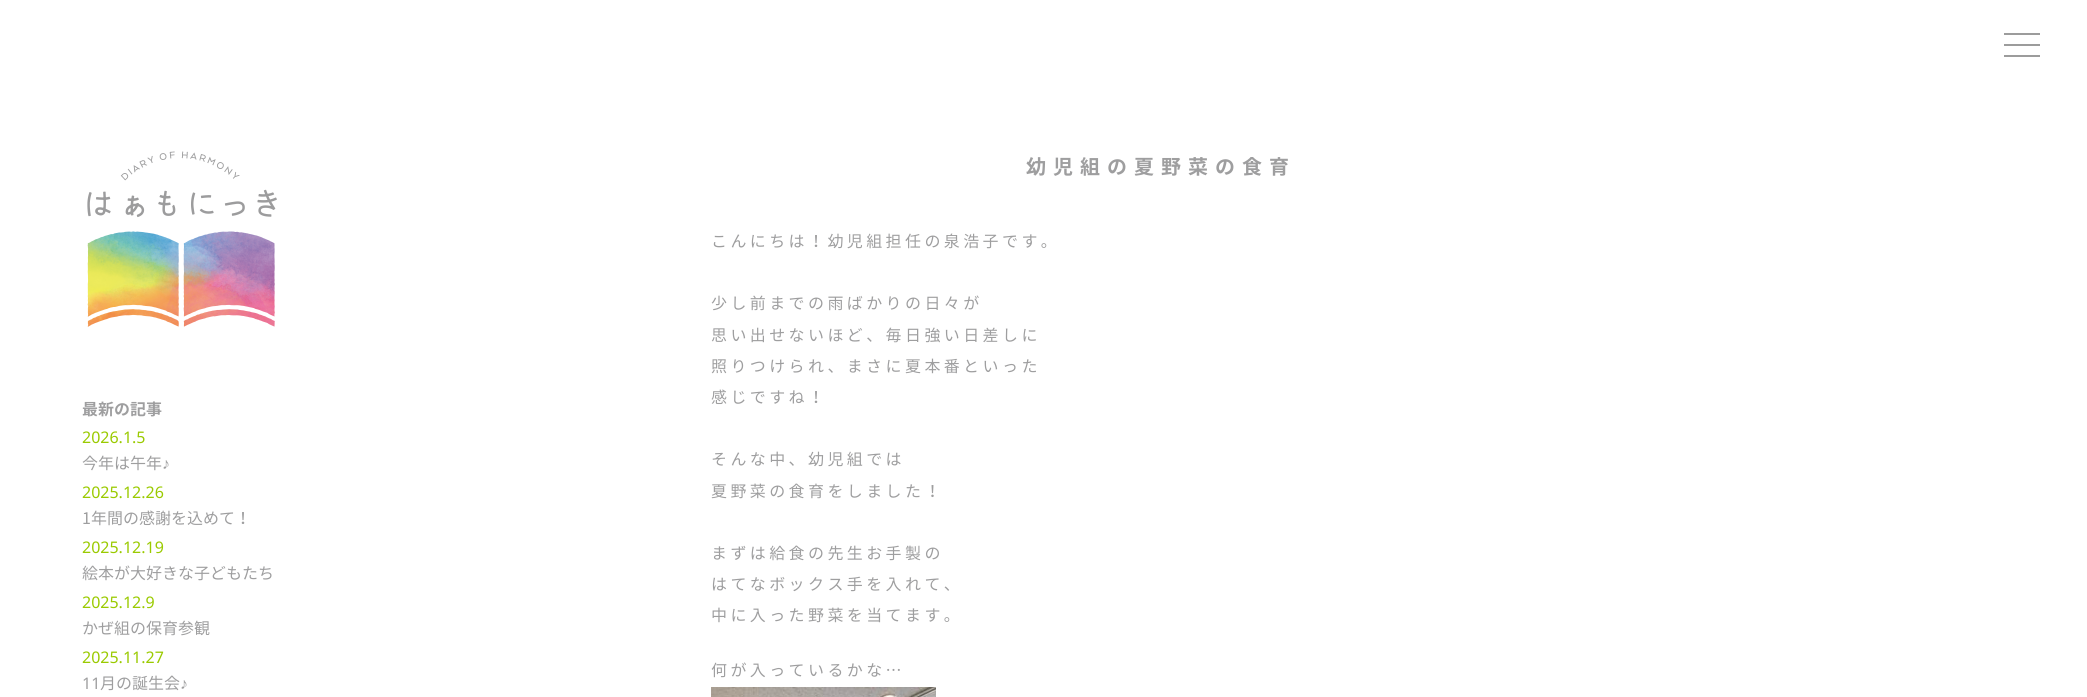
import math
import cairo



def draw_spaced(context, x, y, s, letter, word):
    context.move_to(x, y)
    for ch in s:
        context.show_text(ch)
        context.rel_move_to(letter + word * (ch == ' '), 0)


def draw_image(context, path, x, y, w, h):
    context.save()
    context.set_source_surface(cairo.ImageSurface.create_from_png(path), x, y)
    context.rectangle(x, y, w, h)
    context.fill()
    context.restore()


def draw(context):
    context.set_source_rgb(1, 1, 1)
    context.paint()
    context.set_source_rgb(156 / 255, 156 / 255, 156 / 255)
    context.rectangle(2004, 33, 36, 2)
    context.fill()
    context.rectangle(2004, 44, 36, 2)
    context.fill()
    context.rectangle(2004, 55, 36, 2)
    context.fill()
    draw_image(context, "images/1.png", 87, 151, 190, 176)
    draw_image(context, "images/2.png", 711, 687, 225, 10)
    context.select_font_face("Noto Sans JP", cairo.FontSlant.NORMAL, cairo.FontWeight.BOLD)
    context.set_font_size(16)
    context.set_source_rgb(158 / 255, 158 / 255, 159 / 255)
    context.move_to(82, 415)
    context.show_text("最新の記事")
    context.select_font_face("Noto Sans")
    context.set_source_rgb(154 / 255, 202 / 255, 0)
    context.move_to(82, 443)
    context.show_text("2026.1.5")
    context.select_font_face("Noto Sans JP")
    context.set_source_rgb(158 / 255, 158 / 255, 159 / 255)
    context.move_to(82, 469)
    context.show_text("今年は午年")
    context.select_font_face("Liberation Sans")
    context.move_to(162, 469)
    context.show_text("♪")
    context.select_font_face("Noto Sans")
    context.set_source_rgb(154 / 255, 202 / 255, 0)
    context.move_to(82, 498)
    context.show_text("2025.12.26")
    context.select_font_face("Noto Sans JP")
    context.set_source_rgb(158 / 255, 158 / 255, 159 / 255)
    context.move_to(82, 524)
    context.show_text("1年間の感謝を込めて！")
    context.select_font_face("Noto Sans")
    context.set_source_rgb(154 / 255, 202 / 255, 0)
    context.move_to(82, 553)
    context.show_text("2025.12.19")
    context.select_font_face("Noto Sans JP")
    context.set_source_rgb(158 / 255, 158 / 255, 159 / 255)
    context.move_to(82, 579)
    context.show_text("絵本が大好きな子どもたち")
    context.select_font_face("Noto Sans")
    context.set_source_rgb(154 / 255, 202 / 255, 0)
    context.move_to(82, 608)
    context.show_text("2025.12.9")
    context.select_font_face("Noto Sans JP")
    context.set_source_rgb(158 / 255, 158 / 255, 159 / 255)
    context.move_to(82, 634)
    context.show_text("かぜ組の保育参観")
    context.select_font_face("Noto Sans")
    context.set_source_rgb(154 / 255, 202 / 255, 0)
    context.move_to(82, 663)
    context.show_text("2025.11.27")
    context.set_source_rgb(158 / 255, 158 / 255, 159 / 255)
    context.move_to(82, 689)
    context.show_text("11")
    context.select_font_face("Noto Sans JP")
    context.move_to(100, 689)
    context.show_text("月の誕生会")
    context.select_font_face("Liberation Sans")
    context.move_to(180, 689)
    context.show_text("♪")
    context.select_font_face("Noto Sans JP", cairo.FontSlant.NORMAL, cairo.FontWeight.BOLD)
    context.set_font_size(20)
    draw_spaced(context, 1026, 174, "幼児組の夏野菜の食育", 7, 0)
    context.select_font_face("Noto Sans JP")
    context.set_font_size(16)
    draw_spaced(context, 711, 247, "こんにちは！幼児組担任の泉浩子です。", 3.4, 0)
    draw_spaced(context, 711, 309, "少し前までの雨ばかりの日々が", 3.4, 0)
    draw_spaced(context, 711, 341, "思い出せないほど、毎日強い日差しに", 3.4, 0)
    draw_spaced(context, 711, 372, "照りつけられ、まさに夏本番といった", 3.4, 0)
    draw_spaced(context, 711, 403, "感じですね！", 3.4, 0)
    draw_spaced(context, 711, 465, "そんな中、幼児組では", 3.4, 0)
    draw_spaced(context, 711, 497, "夏野菜の食育をしました！", 3.4, 0)
    draw_spaced(context, 711, 559, "まずは給食の先生お手製の", 3.4, 0)
    draw_spaced(context, 711, 590, "はてなボックス手を入れて、", 3.4, 0)
    draw_spaced(context, 711, 621, "中に入った野菜を当てます。", 3.4, 0)
    draw_spaced(context, 711, 676, "何が入っているかな…", 3.4, 0)


surface = cairo.ImageSurface(cairo.Format.RGB24, 2087, 697)
context = cairo.Context(surface)
options = cairo.FontOptions()
options.set_hint_metrics(cairo.HintMetrics.OFF)
options.set_hint_style(cairo.HintStyle.NONE)
context.set_font_options(options)
context.set_miter_limit(4)
draw(context)
surface.write_to_png("out.png")
